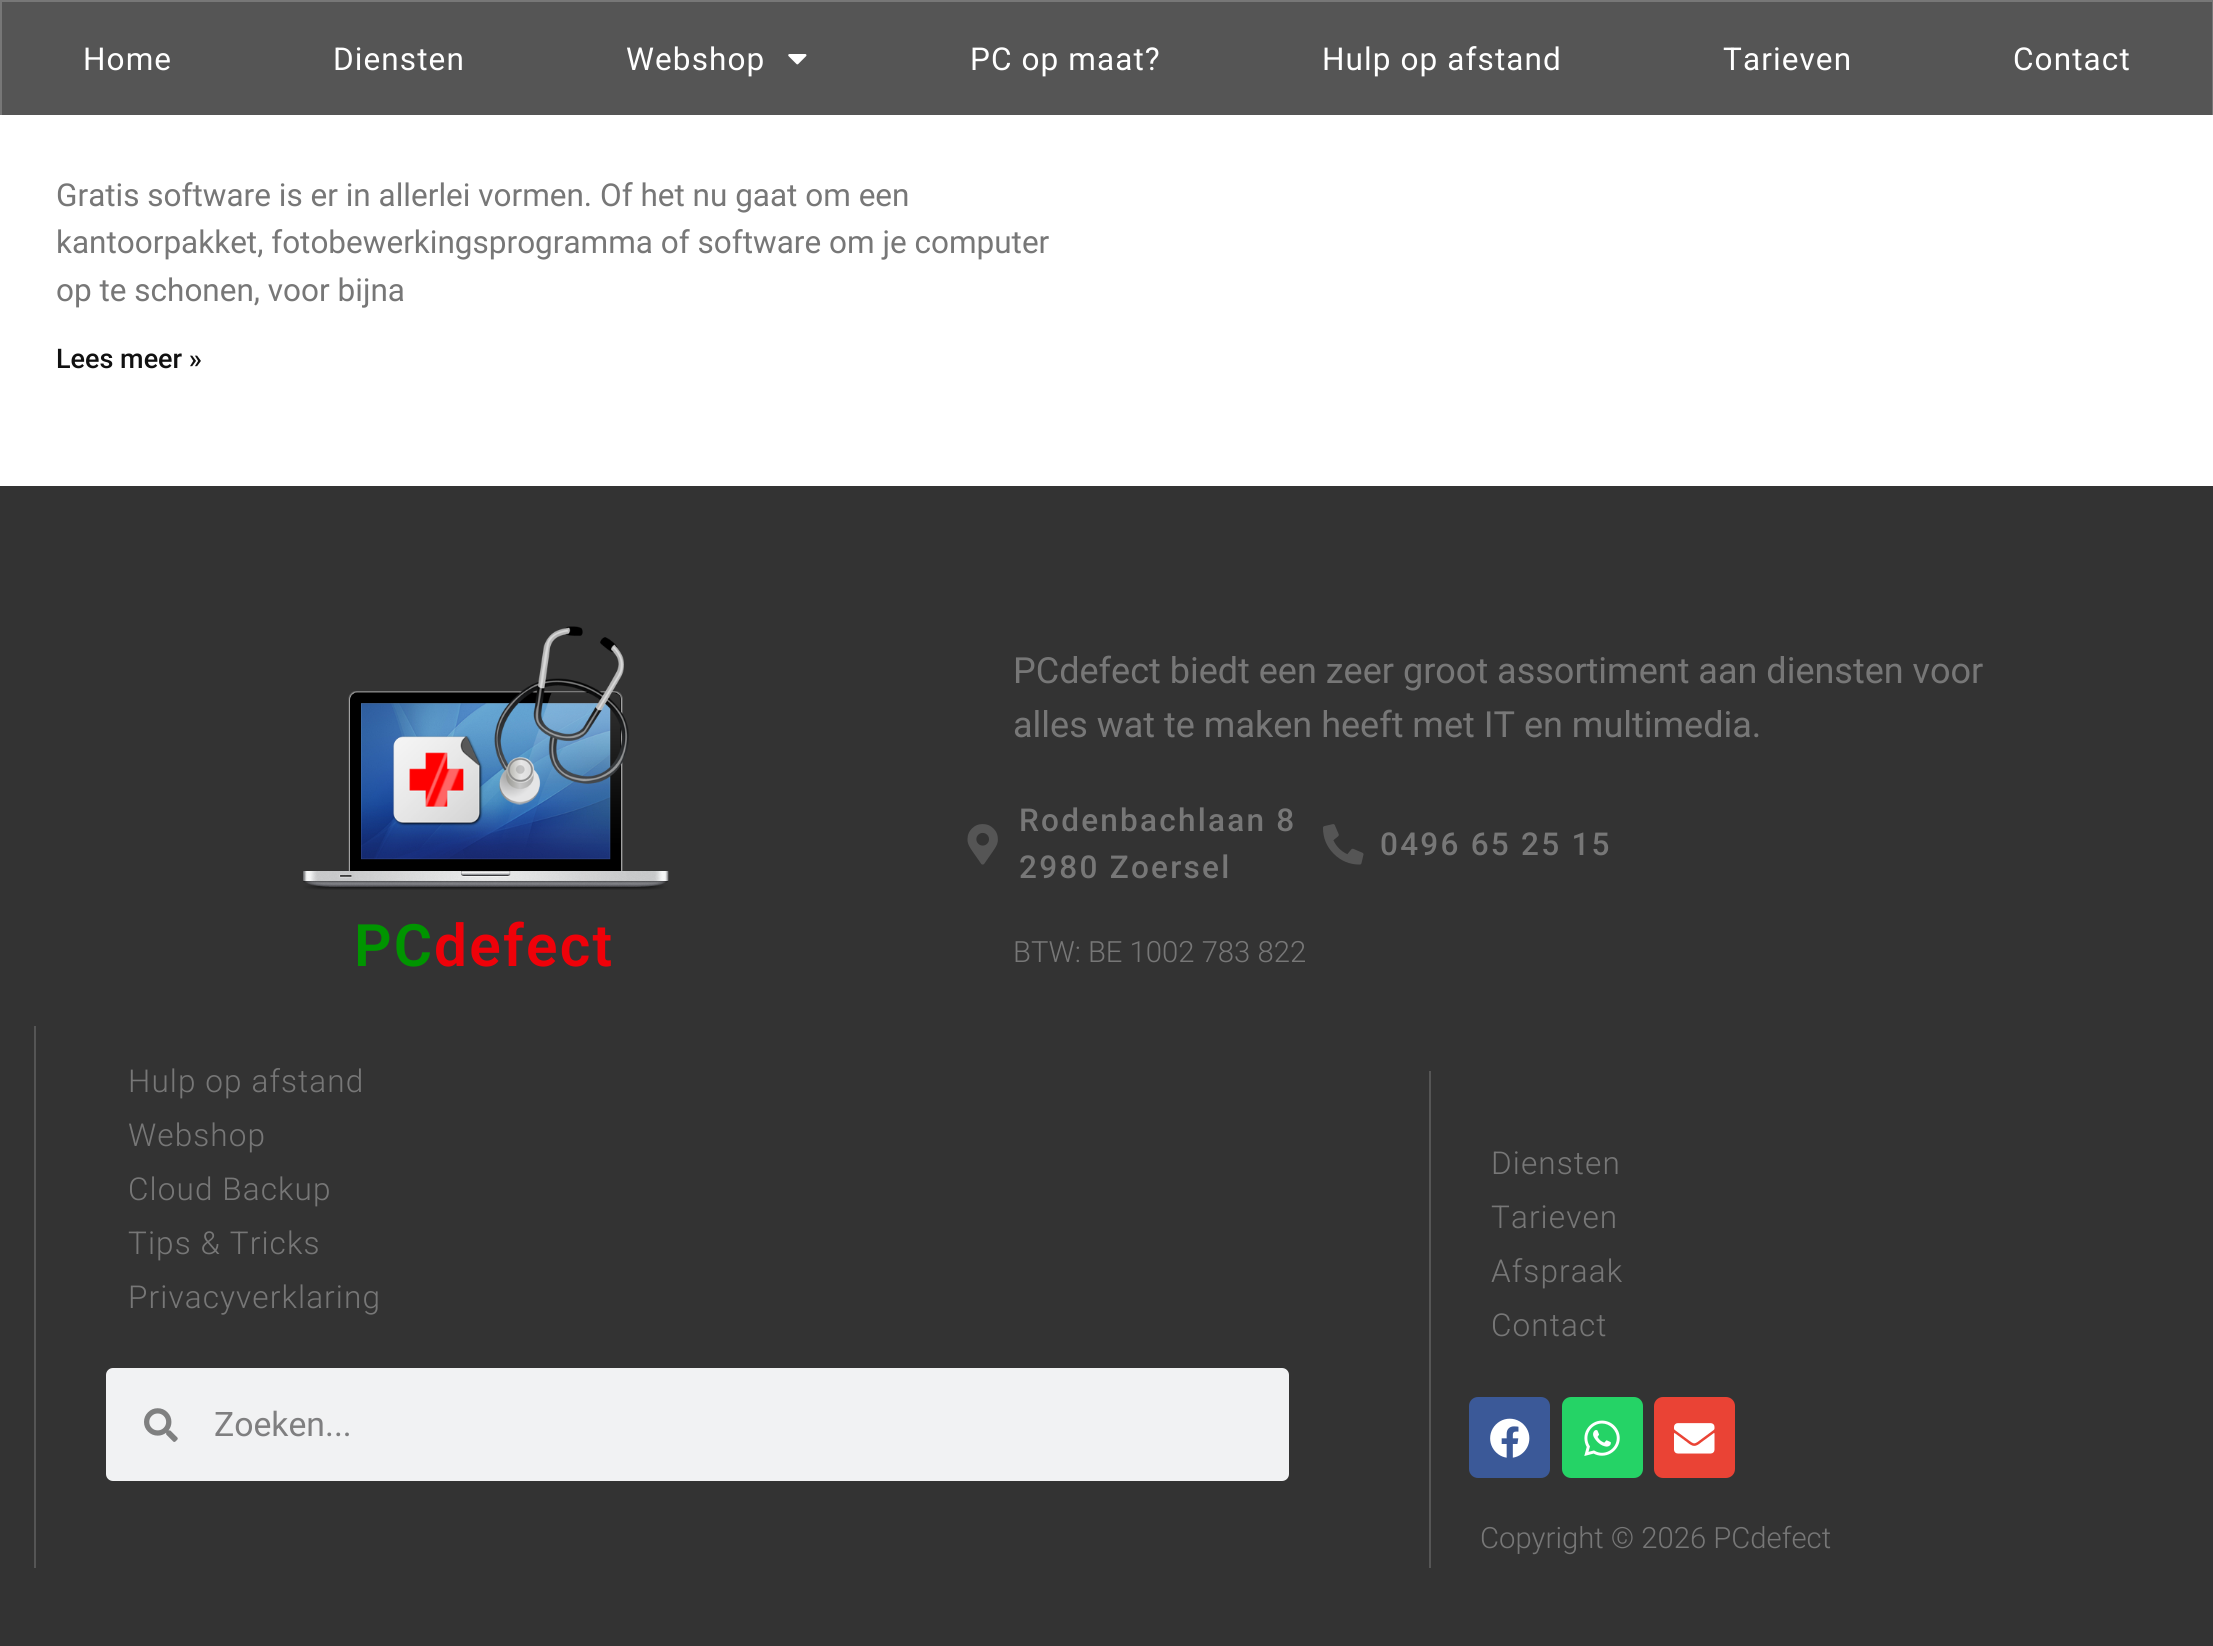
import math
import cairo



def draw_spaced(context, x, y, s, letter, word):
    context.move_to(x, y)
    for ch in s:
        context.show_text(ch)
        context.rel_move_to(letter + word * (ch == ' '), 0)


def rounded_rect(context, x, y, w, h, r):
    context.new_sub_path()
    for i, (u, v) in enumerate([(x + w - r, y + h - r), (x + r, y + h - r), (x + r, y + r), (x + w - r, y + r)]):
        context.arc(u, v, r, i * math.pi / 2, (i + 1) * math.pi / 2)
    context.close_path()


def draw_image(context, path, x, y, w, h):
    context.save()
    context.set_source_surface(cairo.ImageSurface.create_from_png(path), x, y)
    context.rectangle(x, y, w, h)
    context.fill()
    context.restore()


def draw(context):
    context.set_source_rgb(1, 1, 1)
    context.paint()
    context.set_source_rgb(85 / 255, 85 / 255, 85 / 255)
    context.rectangle(2, 2, 2210, 113)
    context.fill()
    context.set_source_rgb(119 / 255, 119 / 255, 119 / 255)
    context.rectangle(0, 0, 2213, 2)
    context.fill()
    context.rectangle(2212, 0, 1, 115)
    context.fill()
    context.rectangle(0, 0, 2, 115)
    context.fill()
    draw_image(context, "images/1.png", 788, 54, 19, 11)
    context.set_source_rgb(51 / 255, 51 / 255, 51 / 255)
    context.rectangle(0, 486, 2213, 1160)
    context.fill()
    draw_image(context, "images/2.png", 303, 626, 366, 264)
    draw_image(context, "images/3.png", 967, 824, 31, 41)
    draw_image(context, "images/4.png", 1323, 824, 41, 41)
    context.set_source_rgb(85 / 255, 85 / 255, 85 / 255)
    context.rectangle(34, 1026, 2, 542)
    context.fill()
    context.set_source_rgb(241 / 255, 242 / 255, 243 / 255)
    rounded_rect(context, 106, 1368, 1183, 113, 7)
    context.fill()
    draw_image(context, "images/5.png", 144, 1408, 34, 34)
    context.set_source_rgb(85 / 255, 85 / 255, 85 / 255)
    context.rectangle(1429, 1071, 2, 497)
    context.fill()
    context.set_source_rgb(59 / 255, 89 / 255, 152 / 255)
    rounded_rect(context, 1469, 1397, 81, 81, 9)
    context.fill()
    draw_image(context, "images/6.png", 1490, 1418, 40, 40)
    context.set_source_rgb(37 / 255, 211 / 255, 102 / 255)
    rounded_rect(context, 1562, 1397, 81, 81, 9)
    context.fill()
    draw_image(context, "images/7.png", 1584, 1420, 36, 36)
    context.set_source_rgb(234 / 255, 67 / 255, 53 / 255)
    rounded_rect(context, 1654, 1397, 81, 81, 9)
    context.fill()
    draw_image(context, "images/8.png", 1674, 1423, 41, 31)
    context.select_font_face("Roboto")
    context.set_font_size(31.5)
    context.set_source_rgb(1, 1, 1)
    draw_spaced(context, 83, 70, "Home", 1.1, 0)
    draw_spaced(context, 333, 70, "Diensten", 1.1, 0)
    draw_spaced(context, 626, 70, "Webshop", 1.1, 0)
    draw_spaced(context, 970, 70, "PC op maat?", 1.1, 0)
    draw_spaced(context, 1322, 70, "Hulp op afstand", 1.1, 0)
    draw_spaced(context, 1723, 70, "Tarieven", 1.1, 0)
    draw_spaced(context, 2013, 70, "Contact", 1.1, 0)
    context.set_source_rgb(119 / 255, 119 / 255, 119 / 255)
    context.move_to(56, 206)
    context.show_text("Gratis software is er in allerlei vormen. Of het nu gaat om een")
    context.move_to(56, 253)
    context.show_text("kantoorpakket, fotobewerkingsprogramma of software om je computer")
    context.move_to(56, 301)
    context.show_text("op te schonen, voor bijna")
    context.select_font_face("Roboto Medium")
    context.set_font_size(27)
    context.set_source_rgb(17 / 255, 17 / 255, 17 / 255)
    context.move_to(56, 368)
    context.show_text("Lees meer »")
    context.select_font_face("Roboto SemiBold")
    context.set_font_size(58.5)
    context.set_source_rgb(0, 149 / 255, 0)
    draw_spaced(context, 354, 966, "PC", 2.25, 0)
    context.set_source_rgb(239 / 255, 1 / 255, 9 / 255)
    draw_spaced(context, 434, 966, "defect", 2.25, 0)
    context.select_font_face("Roboto")
    context.set_font_size(36)
    context.set_source_rgb(119 / 255, 119 / 255, 119 / 255)
    context.move_to(1013, 683)
    context.show_text("PCdefect biedt een zeer groot assortiment aan diensten voor")
    context.move_to(1013, 737)
    context.show_text("alles wat te maken heeft met IT en multimedia.")
    context.select_font_face("Roboto Medium")
    context.set_font_size(31.5)
    draw_spaced(context, 1019, 831, "Rodenbachlaan 8", 2.25, 0)
    draw_spaced(context, 1019, 878, "2980 Zoersel", 2.25, 0)
    draw_spaced(context, 1380, 855, "0496 65 25 15", 2.25, 0)
    context.select_font_face("Roboto Light")
    context.set_font_size(29.25)
    context.move_to(1013, 962)
    context.show_text("BTW: BE 1002 783 822")
    context.set_font_size(31.5)
    draw_spaced(context, 128, 1092, "Hulp op afstand", 1.1, 0)
    draw_spaced(context, 128, 1146, "Webshop", 1.1, 0)
    draw_spaced(context, 128, 1200, "Cloud Backup", 1.1, 0)
    draw_spaced(context, 128, 1254, "Tips & Tricks", 1.1, 0)
    draw_spaced(context, 128, 1308, "Privacyverklaring", 1.1, 0)
    context.select_font_face("Roboto")
    context.set_font_size(33.75)
    context.set_source_rgb(127 / 255, 127 / 255, 128 / 255)
    context.move_to(214, 1436)
    context.show_text("Zoeken...")
    context.select_font_face("Roboto Light")
    context.set_font_size(31.5)
    context.set_source_rgb(119 / 255, 119 / 255, 119 / 255)
    draw_spaced(context, 1491, 1174, "Diensten", 1.1, 0)
    draw_spaced(context, 1491, 1228, "Tarieven", 1.1, 0)
    draw_spaced(context, 1491, 1282, "Afspraak", 1.1, 0)
    draw_spaced(context, 1491, 1336, "Contact", 1.1, 0)
    context.set_font_size(29.25)
    context.move_to(1480, 1548)
    context.show_text("Copyright © 2026 PCdefect")


surface = cairo.ImageSurface(cairo.Format.RGB24, 2213, 1646)
context = cairo.Context(surface)
options = cairo.FontOptions()
options.set_hint_metrics(cairo.HintMetrics.OFF)
options.set_hint_style(cairo.HintStyle.NONE)
context.set_font_options(options)
context.set_miter_limit(4)
draw(context)
surface.write_to_png("out.png")
